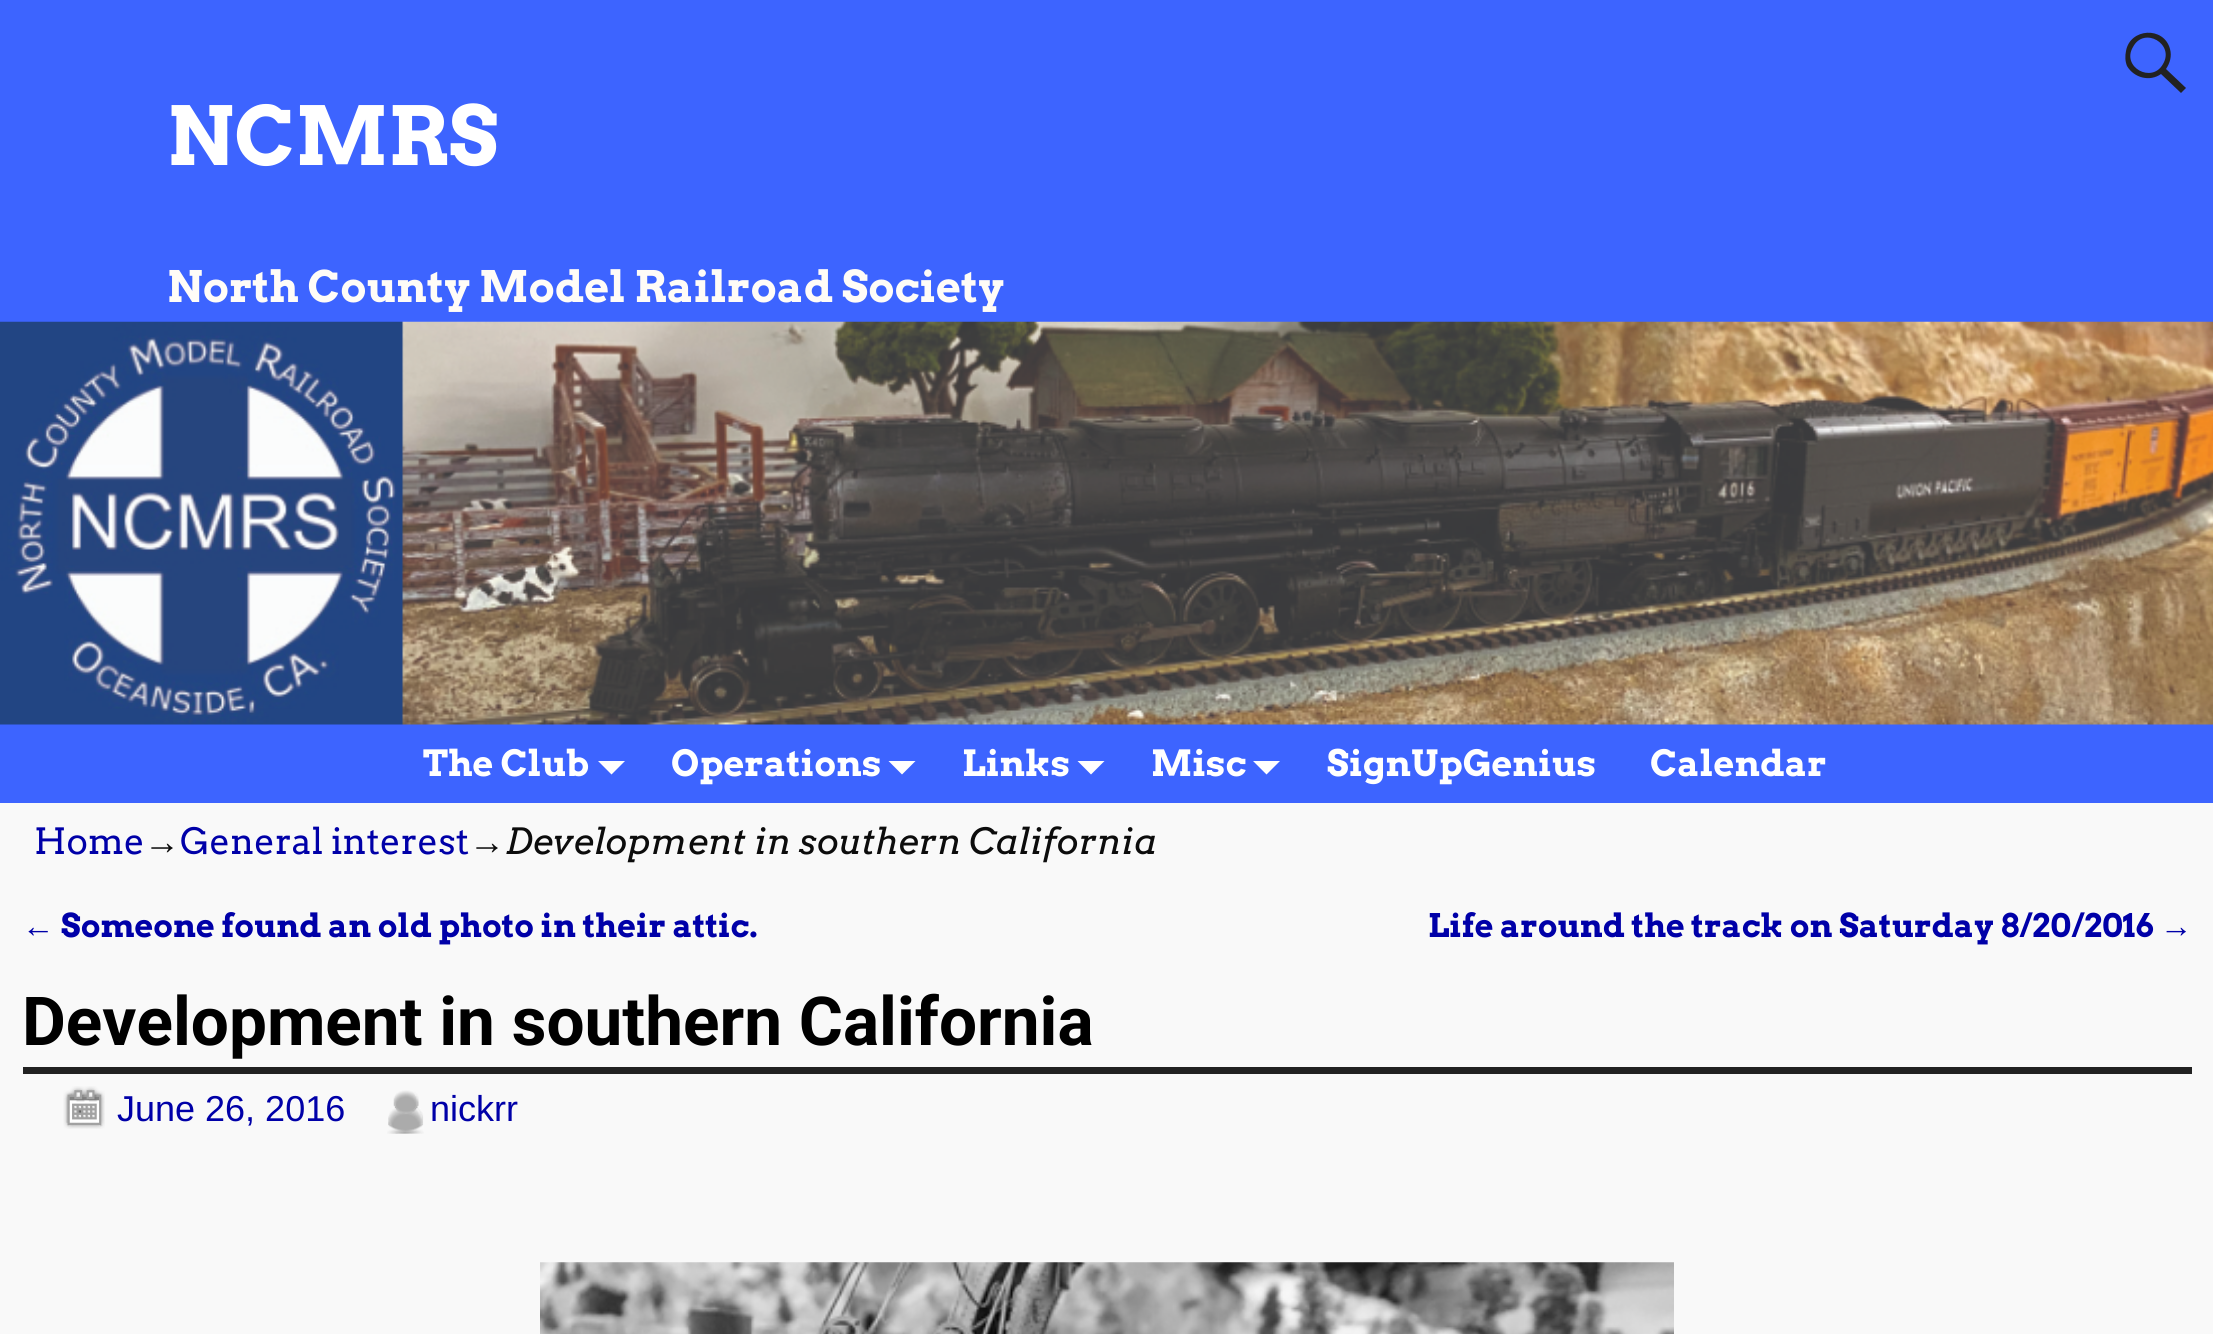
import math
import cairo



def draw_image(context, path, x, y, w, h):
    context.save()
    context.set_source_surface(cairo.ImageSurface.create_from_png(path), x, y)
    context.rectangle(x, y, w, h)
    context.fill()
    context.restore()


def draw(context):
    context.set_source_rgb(249 / 255, 249 / 255, 249 / 255)
    context.paint()
    context.set_source_rgb(61 / 255, 100 / 255, 1)
    context.rectangle(0, 724, 2213, 79)
    context.fill()
    context.rectangle(0, 0, 2213, 322)
    context.fill()
    context.set_source_rgb(34 / 255, 34 / 255, 34 / 255)
    context.new_path()
    context.move_to(2186, 88)
    context.line_to(2181, 93)
    context.line_to(2161, 74)
    context.curve_to(2150, 82, 2134, 78, 2127, 66)
    context.curve_to(2125, 61, 2125, 56, 2126, 51)
    context.curve_to(2130, 28, 2164, 26, 2170, 49)
    context.curve_to(2172, 56, 2170, 63, 2166, 69)
    context.close_path()
    context.move_to(2133, 47)
    context.curve_to(2121, 67, 2152, 84, 2163, 64)
    context.curve_to(2175, 44, 2144, 26, 2133, 47)
    context.close_path()
    context.fill()
    draw_image(context, "images/1.png", 0, 321, 2213, 404)
    context.set_source_rgb(1, 1, 1)
    context.new_path()
    context.move_to(598, 761)
    context.line_to(625, 761)
    context.line_to(611.5, 774.5)
    context.close_path()
    context.fill()
    context.new_path()
    context.move_to(888.5, 761)
    context.line_to(915.5, 761)
    context.line_to(902, 774.5)
    context.close_path()
    context.fill()
    context.new_path()
    context.move_to(1077.5, 761)
    context.line_to(1104.5, 761)
    context.line_to(1091, 774.5)
    context.close_path()
    context.fill()
    context.new_path()
    context.move_to(1253, 761)
    context.line_to(1280, 761)
    context.line_to(1266.5, 774.5)
    context.close_path()
    context.fill()
    context.set_source_rgb(34 / 255, 34 / 255, 34 / 255)
    context.rectangle(23, 1067, 2169, 7)
    context.fill()
    draw_image(context, "images/2.png", 63, 1086, 42, 43)
    draw_image(context, "images/3.png", 387, 1090, 37, 44)
    draw_image(context, "images/4.png", 540, 1262, 1134, 72)
    context.select_font_face("Arvo", cairo.FontSlant.NORMAL, cairo.FontWeight.BOLD)
    context.set_font_size(81)
    context.set_source_rgb(1, 1, 1)
    context.move_to(167, 165)
    context.show_text("NCMRS")
    context.set_font_size(43.25)
    context.set_source_rgb(1, 252 / 255, 247 / 255)
    context.move_to(167, 302)
    context.show_text("North County Model Railroad Society")
    context.set_font_size(36)
    context.set_source_rgb(1, 1, 1)
    context.move_to(423, 776)
    context.show_text("The Club")
    context.move_to(671, 776)
    context.show_text("Operations")
    context.move_to(962, 776)
    context.show_text("Links")
    context.move_to(1151, 776)
    context.show_text("Misc")
    context.move_to(1327, 776)
    context.show_text("SignUpGenius")
    context.move_to(1650, 776)
    context.show_text("Calendar")
    context.select_font_face("Arvo")
    context.set_source_rgb(0, 0, 168 / 255)
    context.move_to(34, 854)
    context.show_text("Home")
    context.select_font_face("Liberation Serif")
    context.set_source_rgb(12 / 255, 12 / 255, 12 / 255)
    context.move_to(144, 854)
    context.show_text("→")
    context.select_font_face("Arvo")
    context.set_source_rgb(0, 0, 168 / 255)
    context.move_to(180, 854)
    context.show_text("General interest")
    context.select_font_face("Liberation Serif")
    context.set_source_rgb(12 / 255, 12 / 255, 12 / 255)
    context.move_to(469, 854)
    context.show_text("→")
    context.select_font_face("Arvo", cairo.FontSlant.ITALIC)
    context.move_to(505, 854)
    context.show_text("Development in southern California")
    context.select_font_face("Liberation Serif")
    context.set_font_size(32.4)
    context.set_source_rgb(0, 0, 168 / 255)
    context.move_to(22, 937)
    context.show_text("←")
    context.select_font_face("Arvo", cairo.FontSlant.NORMAL, cairo.FontWeight.BOLD)
    context.move_to(61, 937)
    context.show_text("Someone found an old photo in their attic.")
    context.move_to(1428, 937)
    context.show_text("Life around the track on Saturday 8/20/2016")
    context.select_font_face("Liberation Serif")
    context.move_to(2160, 937)
    context.show_text("→")
    context.select_font_face("Roboto", cairo.FontSlant.NORMAL, cairo.FontWeight.BOLD)
    context.set_font_size(67.5)
    context.set_source_rgb(0, 0, 0)
    context.move_to(22, 1045)
    context.show_text("Development in southern California")
    context.select_font_face("Liberation Sans")
    context.set_font_size(36)
    context.set_source_rgb(0, 0, 168 / 255)
    context.move_to(117, 1121)
    context.show_text("June 26, 2016")
    context.move_to(430, 1121)
    context.show_text("nickrr")


surface = cairo.ImageSurface(cairo.Format.RGB24, 2213, 1334)
context = cairo.Context(surface)
options = cairo.FontOptions()
options.set_hint_metrics(cairo.HintMetrics.OFF)
options.set_hint_style(cairo.HintStyle.NONE)
context.set_font_options(options)
context.set_miter_limit(4)
draw(context)
surface.write_to_png("out.png")
